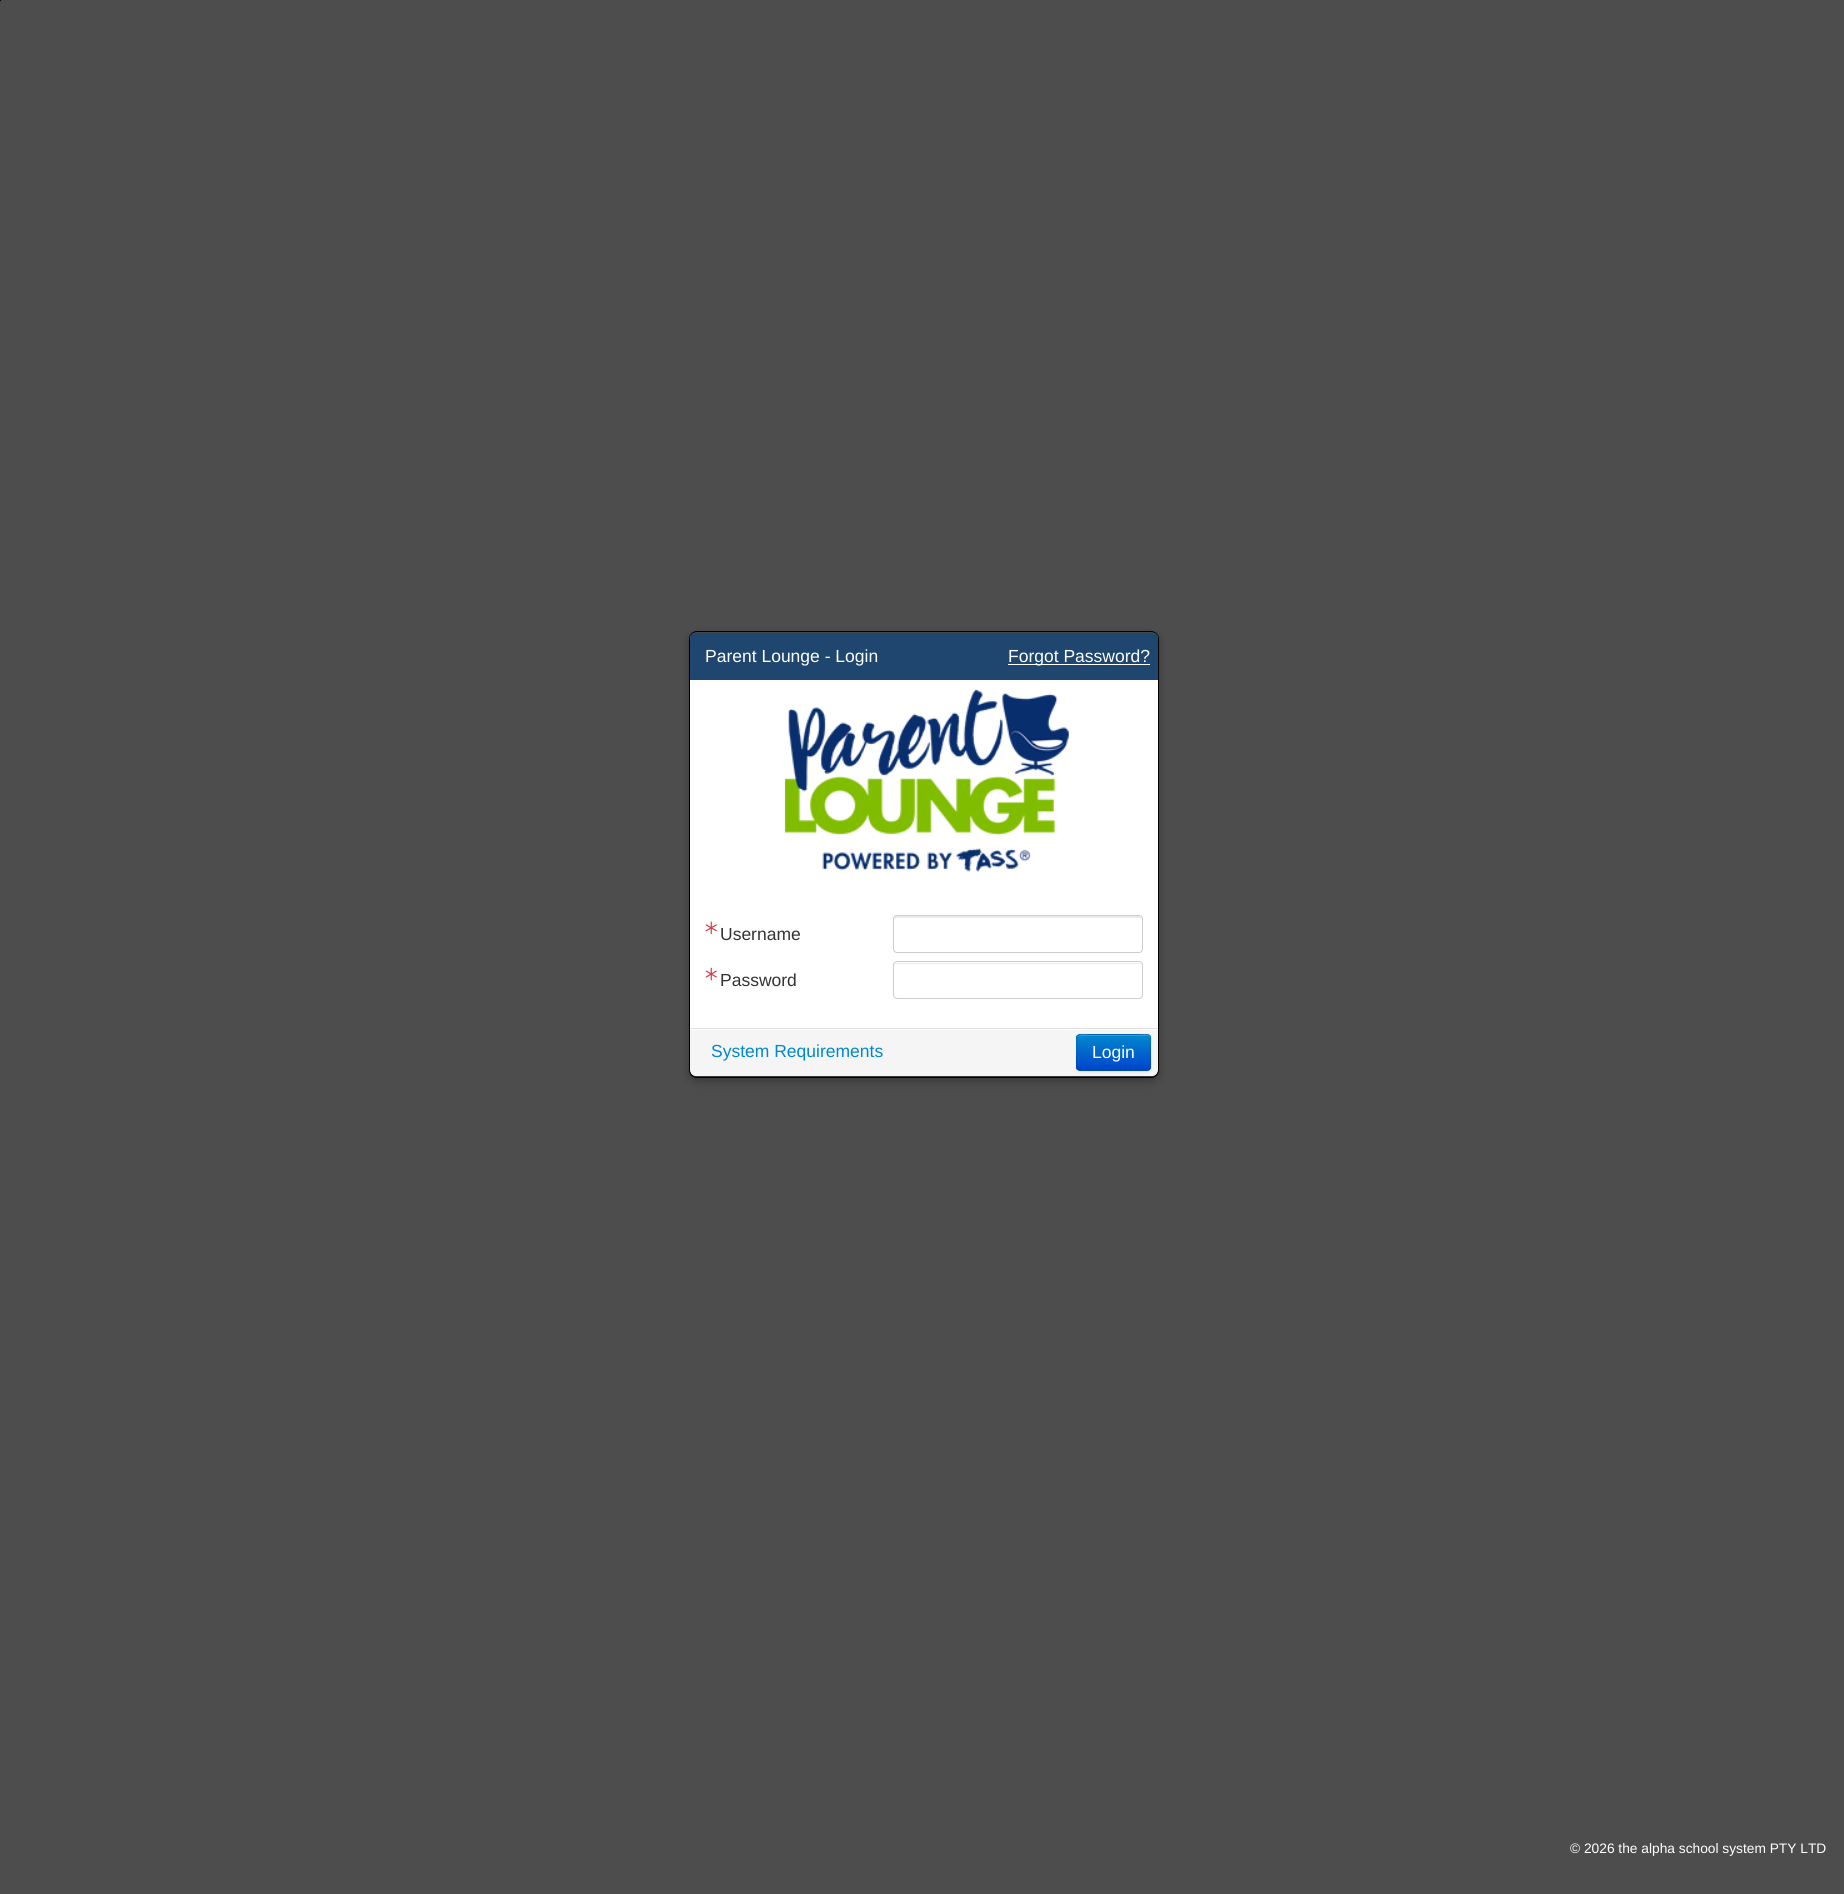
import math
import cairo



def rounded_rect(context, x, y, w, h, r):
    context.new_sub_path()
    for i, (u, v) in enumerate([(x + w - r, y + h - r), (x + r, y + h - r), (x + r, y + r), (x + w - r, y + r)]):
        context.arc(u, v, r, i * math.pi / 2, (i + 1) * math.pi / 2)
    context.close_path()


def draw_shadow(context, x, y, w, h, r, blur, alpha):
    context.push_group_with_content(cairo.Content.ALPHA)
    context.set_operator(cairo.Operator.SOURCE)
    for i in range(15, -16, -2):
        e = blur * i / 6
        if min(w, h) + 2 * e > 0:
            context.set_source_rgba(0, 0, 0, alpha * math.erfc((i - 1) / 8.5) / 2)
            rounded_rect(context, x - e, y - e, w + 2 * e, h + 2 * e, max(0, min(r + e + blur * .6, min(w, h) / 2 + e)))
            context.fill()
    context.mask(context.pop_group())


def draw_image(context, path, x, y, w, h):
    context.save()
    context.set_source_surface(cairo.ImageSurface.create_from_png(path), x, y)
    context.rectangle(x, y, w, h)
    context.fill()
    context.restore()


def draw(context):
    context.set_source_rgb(77 / 255, 77 / 255, 77 / 255)
    context.paint()
    context.set_source_rgb(0, 0, 0)
    draw_shadow(context, 689, 635, 470, 446, 8, 4.5, 0.3)
    context.set_source_rgb(1, 1, 1)
    rounded_rect(context, 690, 633, 468, 443, 6)
    context.fill()
    rounded_rect(context, 689.5, 631.5, 469, 446, 7.5)
    context.set_source_rgb(0, 0, 0)
    context.set_line_width(1)
    context.stroke()
    context.rectangle(0, 0, 1, 1)
    context.fill()
    context.set_source_rgb(31 / 255, 70 / 255, 111 / 255)
    context.new_path()
    context.move_to(695, 633)
    context.line_to(1153, 633)
    context.curve_to(1156, 633, 1158, 635, 1158, 638)
    context.line_to(1158, 680)
    context.line_to(690, 680)
    context.line_to(690, 638)
    context.curve_to(690, 635, 692, 633, 695, 633)
    context.close_path()
    context.fill()
    context.set_source_rgb(1, 1, 1)
    context.rectangle(1008, 664, 142, 1)
    context.fill()
    draw_image(context, "images/1.png", 784, 689, 285, 183)
    draw_image(context, "images/2.png", 705, 921, 12, 14)
    context.set_source_rgb(236 / 255, 236 / 255, 236 / 255)
    context.new_path()
    context.move_to(896, 918)
    context.line_to(1139, 918)
    context.curve_to(1140, 918, 1141, 919, 1141, 920)
    context.curve_to(1141, 918, 1141, 916, 1138, 916)
    context.line_to(896, 916)
    context.curve_to(894, 916, 894, 918, 894, 920)
    context.curve_to(894, 919, 895, 918, 896, 918)
    context.close_path()
    context.fill()
    rounded_rect(context, 893.5, 915.5, 249, 37, 3.5)
    context.set_source_rgb(204 / 255, 204 / 255, 204 / 255)
    context.stroke()
    draw_image(context, "images/3.png", 705, 967, 12, 14)
    context.set_source_rgb(236 / 255, 236 / 255, 236 / 255)
    context.new_path()
    context.move_to(896, 964)
    context.line_to(1139, 964)
    context.curve_to(1140, 964, 1141, 965, 1141, 966)
    context.curve_to(1141, 964, 1140, 963, 1138, 963)
    context.line_to(896, 963)
    context.line_to(894, 964)
    context.line_to(894, 966)
    context.curve_to(894, 965, 895, 964, 896, 964)
    context.close_path()
    context.fill()
    rounded_rect(context, 893.5, 961.5, 249, 37, 3.5)
    context.set_source_rgb(204 / 255, 204 / 255, 204 / 255)
    context.stroke()
    context.set_source_rgb(245 / 255, 245 / 255, 245 / 255)
    context.new_path()
    context.move_to(690, 1028)
    context.line_to(1158, 1028)
    context.line_to(1158, 1068)
    context.curve_to(1158, 1072.5, 1154.5, 1076, 1150, 1076)
    context.line_to(698, 1076)
    context.curve_to(693.5, 1076, 690, 1072.5, 690, 1068)
    context.close_path()
    context.fill()
    context.set_source_rgb(1, 1, 1)
    context.rectangle(690, 1029, 468, 1)
    context.fill()
    context.set_source_rgb(221 / 255, 221 / 255, 221 / 255)
    context.rectangle(690, 1028, 468, 1)
    context.fill()
    context.set_source_rgb(0, 0, 0)
    draw_shadow(context, 1076, 1035, 75, 38, 4, 1, 0.05)
    context.set_source_rgb(0, 109 / 255, 204 / 255)
    rounded_rect(context, 1076, 1034, 75, 37, 4)
    context.fill()
    context.save()
    rounded_rect(context, 1076, 1034, 75, 37, 4)
    context.clip()
    gradient = cairo.LinearGradient(1114, 1035, 1114, 1070)
    gradient.add_color_stop_rgba(0, 0, 136 / 255, 204 / 255, 1)
    gradient.add_color_stop_rgba(1, 0, 68 / 255, 204 / 255, 1)
    context.set_source(gradient)
    context.rectangle(1076, 1035, 75, 35)
    context.fill()
    context.restore()
    context.set_source_rgba(1, 1, 1, 0.2)
    context.new_path()
    context.move_to(1080, 1036)
    context.line_to(1148, 1036)
    context.curve_to(1149, 1036, 1150, 1037, 1150, 1039)
    context.curve_to(1150, 1032, 1142, 1035, 1136, 1035)
    context.line_to(1092, 1035)
    context.curve_to(1086, 1035, 1078, 1032, 1078, 1039)
    context.curve_to(1078, 1037, 1079, 1036, 1080, 1036)
    context.close_path()
    context.fill()
    context.new_path()
    context.move_to(1149.5, 1069.5)
    context.line_to(1148, 1070.5)
    context.line_to(1079.5, 1070.5)
    context.line_to(1078, 1069.5)
    context.set_source_rgba(0, 0, 0, 0.25)
    context.set_line_width(1.2)
    context.stroke()
    context.new_path()
    context.move_to(1078, 1069.5)
    context.curve_to(1075.5, 1067.5, 1077, 1055.5, 1077, 1052.5)
    context.curve_to(1077, 1032.5, 1072.5, 1034.5, 1091, 1034.5)
    context.line_to(1136, 1034.5)
    context.curve_to(1155, 1034.5, 1150.5, 1032.5, 1150.5, 1052.5)
    context.curve_to(1150.5, 1055.5, 1152, 1067.5, 1149.5, 1069.5)
    context.set_source_rgba(0, 0, 0, 0.1)
    context.stroke()
    context.select_font_face("Liberation Sans")
    context.set_font_size(17.5)
    context.set_source_rgb(1, 1, 1)
    context.move_to(705, 662)
    context.show_text("Parent Lounge - Login")
    context.move_to(1008, 662)
    context.show_text("Forgot Password?")
    context.set_source_rgb(51 / 255, 51 / 255, 51 / 255)
    context.move_to(720, 940)
    context.show_text("Username")
    context.move_to(720, 986)
    context.show_text("Password")
    context.set_source_rgb(0, 136 / 255, 204 / 255)
    context.move_to(711, 1057)
    context.show_text("System Requirements")
    context.set_source_rgb(1, 1, 1)
    context.move_to(1092, 1058)
    context.show_text("Login")
    context.set_font_size(13.75)
    context.move_to(1570, 1853)
    context.show_text("© 2026 the alpha school system PTY LTD")


surface = cairo.ImageSurface(cairo.Format.RGB24, 1844, 1894)
context = cairo.Context(surface)
options = cairo.FontOptions()
options.set_hint_metrics(cairo.HintMetrics.OFF)
options.set_hint_style(cairo.HintStyle.NONE)
context.set_font_options(options)
context.set_miter_limit(4)
draw(context)
surface.write_to_png("out.png")
